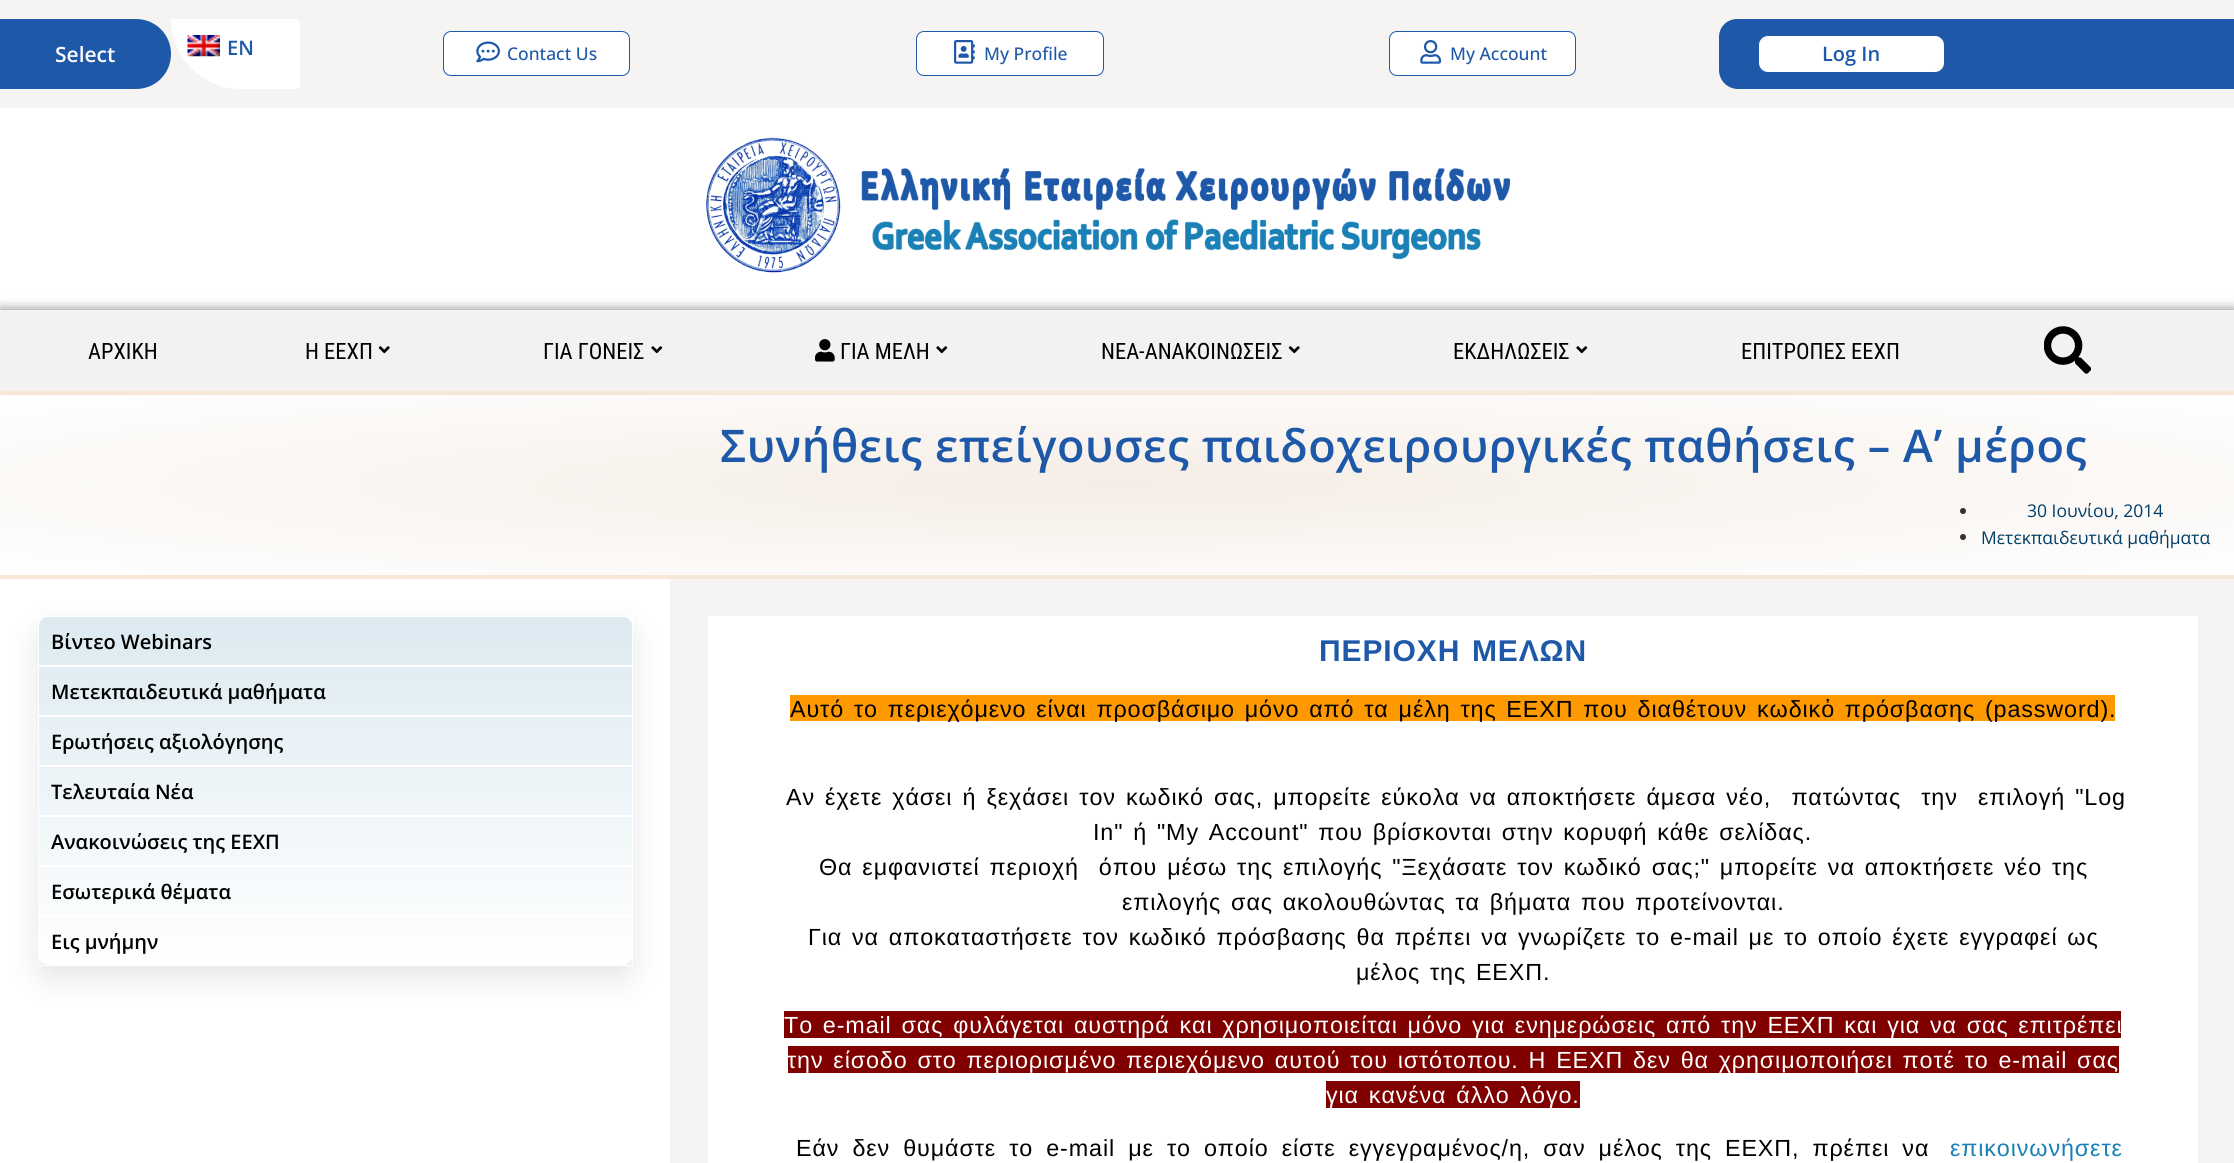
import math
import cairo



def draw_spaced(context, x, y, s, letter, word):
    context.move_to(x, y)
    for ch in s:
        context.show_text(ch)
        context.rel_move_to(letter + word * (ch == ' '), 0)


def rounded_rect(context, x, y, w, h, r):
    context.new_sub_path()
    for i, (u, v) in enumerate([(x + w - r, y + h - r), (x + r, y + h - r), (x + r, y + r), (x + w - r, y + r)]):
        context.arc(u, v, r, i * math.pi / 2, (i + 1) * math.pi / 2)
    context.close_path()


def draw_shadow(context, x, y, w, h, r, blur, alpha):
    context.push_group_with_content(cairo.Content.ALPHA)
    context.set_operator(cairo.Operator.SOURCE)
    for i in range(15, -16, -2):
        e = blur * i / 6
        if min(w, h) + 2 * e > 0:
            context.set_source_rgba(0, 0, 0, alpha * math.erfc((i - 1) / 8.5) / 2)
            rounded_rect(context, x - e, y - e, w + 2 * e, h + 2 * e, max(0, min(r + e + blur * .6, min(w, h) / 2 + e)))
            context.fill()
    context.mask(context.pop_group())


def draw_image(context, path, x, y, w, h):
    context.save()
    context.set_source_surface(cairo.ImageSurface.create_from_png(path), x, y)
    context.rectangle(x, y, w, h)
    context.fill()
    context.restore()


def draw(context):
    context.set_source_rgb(1, 1, 1)
    context.paint()
    context.set_source_rgb(245 / 255, 244 / 255, 243 / 255)
    context.rectangle(0, 0, 2234, 108)
    context.fill()
    context.set_source_rgb(30 / 255, 88 / 255, 169 / 255)
    context.new_path()
    context.move_to(0, 19)
    context.line_to(136, 19)
    context.curve_to(155.5, 19, 171, 34.5, 171, 54)
    context.curve_to(171, 73.5, 155.5, 89, 136, 89)
    context.line_to(0, 89)
    context.close_path()
    context.fill()
    context.set_source_rgb(1, 1, 1)
    context.new_path()
    context.move_to(171, 19)
    context.line_to(295, 19)
    context.curve_to(298, 19, 300, 21, 300, 24)
    context.line_to(300, 84)
    context.curve_to(300, 87, 298, 89, 295, 89)
    context.line_to(241, 89)
    context.curve_to(202.5, 89, 171, 57.5, 171, 19)
    context.close_path()
    context.fill()
    draw_image(context, "images/1.png", 187, 35, 33, 22)
    rounded_rect(context, 443.5, 31.5, 186, 44, 7.5)
    context.fill_preserve()
    context.set_source_rgb(30 / 255, 88 / 255, 169 / 255)
    context.set_line_width(1)
    context.stroke()
    draw_image(context, "images/2.png", 476, 41, 24, 22)
    context.set_source_rgb(1, 1, 1)
    rounded_rect(context, 916.5, 31.5, 187, 44, 7.5)
    context.fill_preserve()
    context.set_source_rgb(30 / 255, 88 / 255, 169 / 255)
    context.stroke()
    draw_image(context, "images/3.png", 954, 40, 21, 24)
    context.set_source_rgb(1, 1, 1)
    rounded_rect(context, 1389.5, 31.5, 186, 44, 7.5)
    context.fill_preserve()
    context.set_source_rgb(30 / 255, 88 / 255, 169 / 255)
    context.stroke()
    draw_image(context, "images/4.png", 1420, 40, 21, 24)
    context.new_path()
    context.move_to(1737, 19)
    context.line_to(1976, 19)
    context.line_to(1976, 89)
    context.line_to(1738, 89)
    context.curve_to(1727.5, 89, 1719, 80.5, 1719, 70)
    context.line_to(1719, 37)
    context.curve_to(1719, 27, 1727, 19, 1737, 19)
    context.close_path()
    context.fill()
    context.set_source_rgb(1, 1, 1)
    rounded_rect(context, 1758.5, 35.5, 186, 37, 9.5)
    context.fill_preserve()
    context.set_source_rgb(30 / 255, 88 / 255, 169 / 255)
    context.stroke()
    context.rectangle(1976, 19, 258, 70)
    context.fill()
    draw_image(context, "images/5.png", 705, 137, 806, 136)
    context.set_source_rgb(0, 0, 0)
    draw_shadow(context, 0, 310, 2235, 81, 0, 6, 0.5)
    context.set_source_rgb(242 / 255, 242 / 255, 242 / 255)
    context.rectangle(0, 310, 2234, 81)
    context.fill()
    draw_image(context, "images/6.png", 378, 346, 12, 8)
    draw_image(context, "images/7.png", 651, 346, 12, 8)
    draw_image(context, "images/8.png", 815, 339, 20, 23)
    draw_image(context, "images/7.png", 936, 346, 12, 8)
    draw_image(context, "images/6.png", 1288, 346, 12, 8)
    draw_image(context, "images/7.png", 1576, 346, 12, 8)
    draw_image(context, "images/9.png", 2044, 326, 47, 48)
    gradient = cairo.RadialGradient(0, 0, 0, 0, 0, 1)
    gradient.set_matrix(cairo.Matrix(1 / 1580, 0, 0, 1 / 127, -1 * 1118 / 1580, -1 * 485 / 127))
    gradient.add_color_stop_rgba(0, 245 / 255, 237 / 255, 229 / 255, 1)
    gradient.add_color_stop_rgba(1, 1, 1, 1, 1)
    context.set_source(gradient)
    context.rectangle(0, 395, 2234, 180)
    context.fill()
    context.set_source_rgb(246 / 255, 231 / 255, 216 / 255)
    context.rectangle(0, 391, 2234, 4)
    context.fill()
    context.rectangle(0, 575, 2234, 4)
    context.fill()
    context.set_source_rgb(51 / 255, 51 / 255, 51 / 255)
    context.arc(1963, 511, 3, 0, 2 * math.pi)
    context.fill()
    context.arc(1963, 537, 3, 0, 2 * math.pi)
    context.fill()
    context.set_source_rgb(245 / 255, 244 / 255, 243 / 255)
    context.rectangle(670, 579, 1564, 584)
    context.fill()
    context.set_source_rgb(0, 0, 0)
    draw_shadow(context, 38, 629, 595, 350, 13, 15.5, 0.1)
    gradient = cairo.LinearGradient(335, 616, 335, 966)
    gradient.add_color_stop_rgba(0, 220 / 255, 234 / 255, 241 / 255, 1)
    gradient.add_color_stop_rgba(1, 1, 1, 1, 1)
    context.set_source(gradient)
    rounded_rect(context, 38, 616, 595, 350, 13)
    context.fill()
    context.rectangle(38.5, 616.5, 594, 49)
    context.set_source_rgb(1, 1, 1)
    context.stroke()
    context.rectangle(38.5, 666.5, 594, 49)
    context.stroke()
    context.rectangle(38.5, 716.5, 594, 49)
    context.stroke()
    context.rectangle(38.5, 766.5, 594, 49)
    context.stroke()
    context.rectangle(38.5, 816.5, 594, 49)
    context.stroke()
    context.rectangle(38.5, 866.5, 594, 49)
    context.stroke()
    context.rectangle(38.5, 916.5, 594, 49)
    context.stroke()
    context.rectangle(708, 616, 1490, 547)
    context.fill()
    context.set_source_rgb(1, 153 / 255, 0)
    context.rectangle(790, 695, 1325, 26)
    context.fill()
    context.set_source_rgb(128 / 255, 0, 0)
    context.rectangle(784, 1011, 1337, 27)
    context.fill()
    context.rectangle(788, 1046, 1331, 27)
    context.fill()
    context.rectangle(1326, 1081, 254, 27)
    context.fill()
    context.select_font_face("Open Sans SemiBold")
    context.set_font_size(21)
    context.set_source_rgb(1, 1, 1)
    context.move_to(55, 62)
    context.show_text("Select")
    context.set_font_size(20)
    context.set_source_rgb(30 / 255, 88 / 255, 169 / 255)
    context.move_to(227, 55)
    context.show_text("EN")
    context.select_font_face("Open Sans Medium")
    context.set_font_size(17.5)
    context.move_to(507, 60)
    context.show_text("Contact Us")
    context.move_to(984, 60)
    context.show_text("My Profile")
    context.move_to(1450, 60)
    context.show_text("My Account")
    context.select_font_face("Open Sans SemiBold")
    context.set_font_size(20)
    context.move_to(1822, 61)
    context.show_text("Log In")
    context.select_font_face("Roboto Condensed")
    context.set_font_size(22.5)
    context.set_source_rgb(0, 0, 0)
    context.move_to(88, 359)
    context.show_text("ΑΡΧΙΚΗ")
    context.move_to(305, 359)
    context.show_text("Η ΕΕΧΠ")
    context.move_to(543, 359)
    context.show_text("ΓΙΑ ΓΟΝΕΙΣ")
    context.move_to(840, 359)
    context.show_text("ΓΙΑ ΜΕΛΗ")
    context.move_to(1101, 359)
    context.show_text("ΝΕΑ-ΑΝΑΚΟΙΝΩΣΕΙΣ")
    context.move_to(1453, 359)
    context.show_text("ΕΚΔΗΛΩΣΕΙΣ")
    context.move_to(1741, 359)
    context.show_text("ΕΠΙΤΡΟΠΕΣ ΕΕΧΠ")
    context.select_font_face("Open Sans SemiBold")
    context.set_font_size(45)
    context.set_source_rgb(30 / 255, 88 / 255, 169 / 255)
    draw_spaced(context, 720, 462, "Συνήθεις επείγουσες παιδοχειρουργικές παθήσεις – Α’ μέρος", 0.62, 0)
    context.select_font_face("Open Sans")
    context.set_font_size(17.5)
    context.set_source_rgb(0, 61 / 255, 104 / 255)
    context.move_to(2027, 517)
    context.show_text("30 Ιουνίου, 2014")
    context.move_to(1981, 544)
    context.show_text("Μετεκπαιδευτικά μαθήματα")
    context.select_font_face("Open Sans SemiBold")
    context.set_font_size(20)
    context.set_source_rgb(0, 0, 0)
    context.move_to(51, 649)
    context.show_text("Βίντεο Webinars")
    context.move_to(51, 699)
    context.show_text("Μετεκπαιδευτικά μαθήματα")
    context.move_to(51, 749)
    context.show_text("Ερωτήσεις αξιολόγησης")
    context.move_to(51, 799)
    context.show_text("Τελευταία Νέα")
    context.move_to(51, 849)
    context.show_text("Ανακοινώσεις της ΕΕΧΠ")
    context.move_to(51, 899)
    context.show_text("Εσωτερικά θέματα")
    context.move_to(51, 949)
    context.show_text("Εις μνήμην")
    context.select_font_face("Liberation Sans", cairo.FontSlant.NORMAL, cairo.FontWeight.BOLD)
    context.set_font_size(30)
    context.set_source_rgb(30 / 255, 88 / 255, 169 / 255)
    draw_spaced(context, 1319, 661, "ΠΕΡΙΟΧΗ ΜΕΛΩΝ", 0.88, 2.5)
    context.select_font_face("Liberation Sans")
    context.set_font_size(23.33)
    context.set_source_rgb(0, 0, 0)
    draw_spaced(context, 790, 717, "Αυτό το περιεχόμενο είναι προσβάσιμο μόνο από τα μέλη της ΕΕΧΠ που διαθέτουν κωδικὀ πρόσβασης (password).", 0.88, 2.5)
    draw_spaced(context, 786, 805, "Αν έχετε χάσει ή ξεχάσει τον κωδικό σας, μπορείτε εύκολα να αποκτήσετε άμεσα νέο,  πατώντας  την  επιλογή \"Log", 0.88, 2.75)
    draw_spaced(context, 1093, 840, "In\" ή \"My Account\" που βρίσκονται στην κορυφή κάθε σελίδας.", 0.88, 2.5)
    draw_spaced(context, 819, 875, "Θα εμφανιστεί περιοχή  όπου μέσω της επιλογής \"Ξεχάσατε τον κωδικό σας;\" μπορείτε να αποκτήσετε νέο της", 0.88, 2.6)
    draw_spaced(context, 1122, 910, "επιλογής σας ακολουθώντας τα βήματα που προτείνονται.", 0.88, 2.5)
    draw_spaced(context, 808, 945, "Για να αποκαταστήσετε τον κωδικό πρόσβασης θα πρέπει να γνωρίζετε το e-mail με το οποίο έχετε εγγραφεί ως", 0.88, 2.5)
    draw_spaced(context, 1356, 980, "μέλος της ΕΕΧΠ.", 0.88, 2.5)
    context.set_source_rgb(1, 1, 1)
    draw_spaced(context, 784, 1033, "Το e-mail σας φυλάγεται αυστηρά και χρησιμοποιείται μόνο για ενημερώσεις από την ΕΕΧΠ και για να σας επιτρέπει", 0.88, 2.5)
    draw_spaced(context, 787, 1068, "την είσοδο στο περιορισμένο περιεχόμενο αυτού του ιστότοπου. Η ΕΕΧΠ δεν θα χρησιμοποιήσει ποτέ το e-mail σας", 0.88, 2.5)
    draw_spaced(context, 1326, 1103, "για κανένα άλλο λόγο.", 0.88, 2.5)
    context.set_source_rgb(0, 0, 0)
    draw_spaced(context, 796, 1156, "Εάν δεν θυμάστε το e-mail με το οποίο είστε εγγεγραμένος/η, σαν μέλος της ΕΕΧΠ, πρέπει να", 0.88, 5.75)
    context.set_source_rgb(26 / 255, 128 / 255, 182 / 255)
    draw_spaced(context, 1950, 1156, "επικοινωνήσετε", 0.88, 0)


surface = cairo.ImageSurface(cairo.Format.RGB24, 2234, 1163)
context = cairo.Context(surface)
options = cairo.FontOptions()
options.set_hint_metrics(cairo.HintMetrics.OFF)
options.set_hint_style(cairo.HintStyle.NONE)
context.set_font_options(options)
context.set_miter_limit(4)
draw(context)
surface.write_to_png("out.png")
